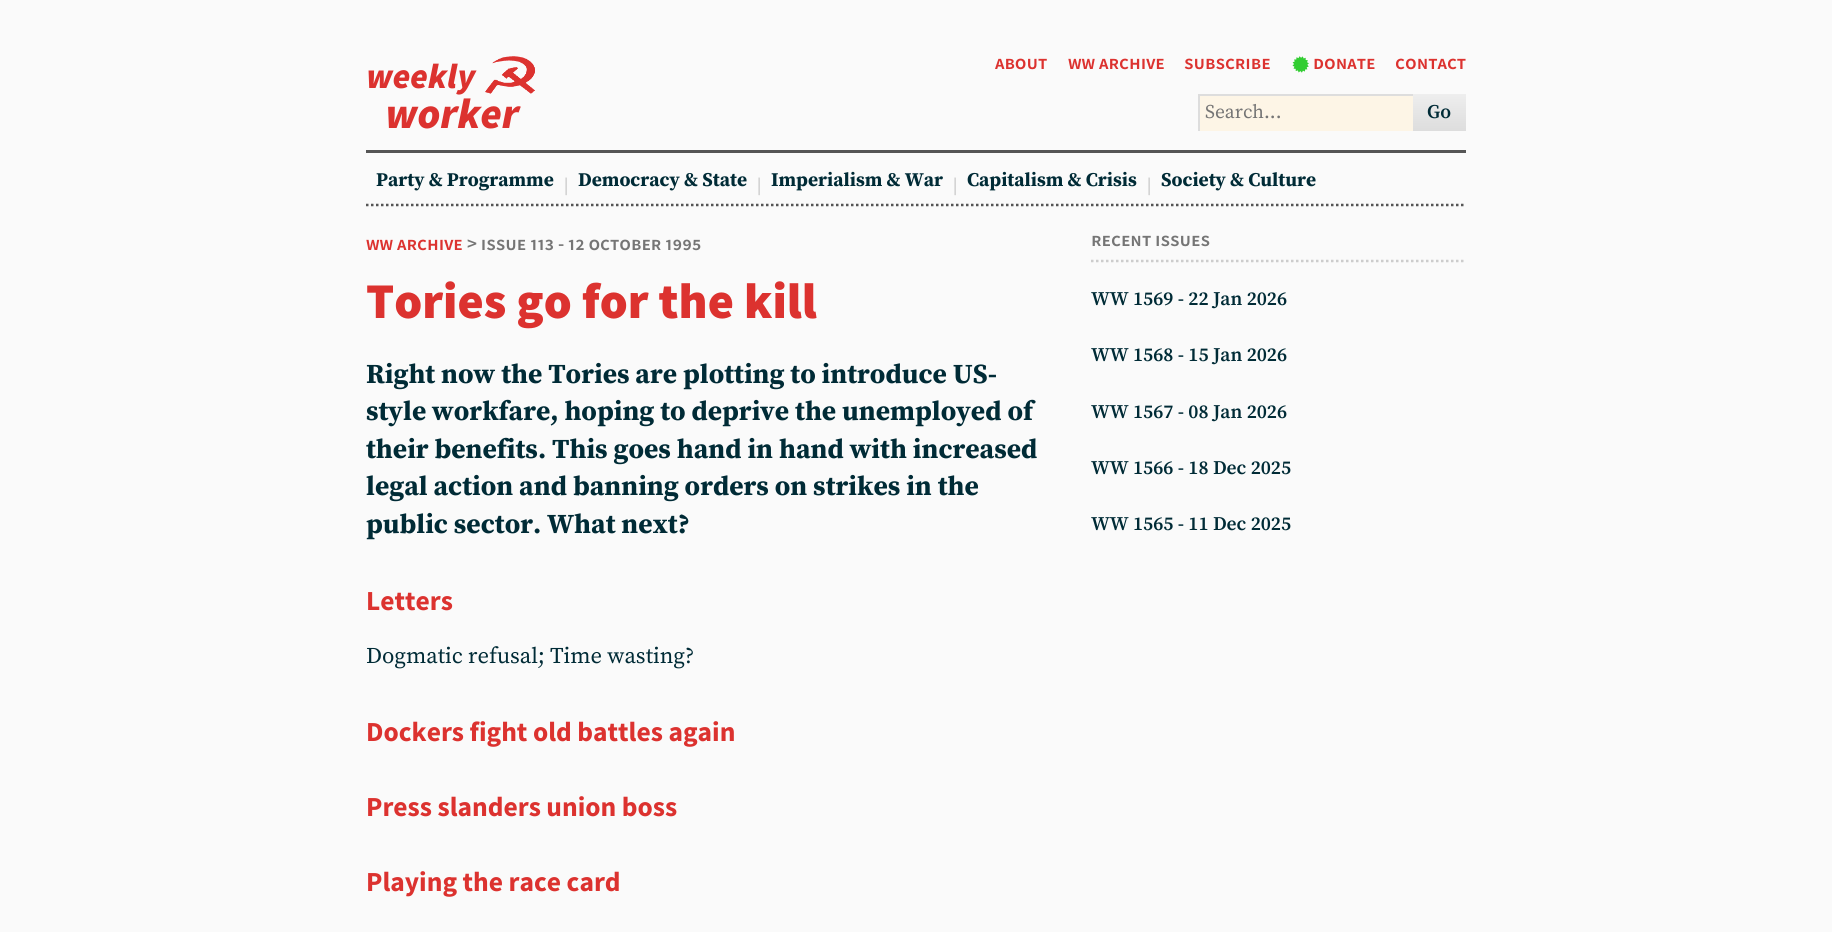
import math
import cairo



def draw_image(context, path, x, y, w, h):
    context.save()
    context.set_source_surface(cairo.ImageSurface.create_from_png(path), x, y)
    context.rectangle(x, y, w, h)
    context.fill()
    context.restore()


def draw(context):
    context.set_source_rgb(250 / 255, 250 / 255, 250 / 255)
    context.paint()
    context.new_path()
    context.move_to(366, 205)
    context.line_to(1466, 205)
    context.set_source_rgb(85 / 255, 85 / 255, 85 / 255)
    context.set_line_width(2.5)
    context.set_dash([2.5, 2.5])
    context.stroke()
    draw_image(context, "images/1.png", 485, 56, 50, 38)
    draw_image(context, "images/2.png", 1292, 56, 17, 17)
    context.set_source_rgb(253 / 255, 245 / 255, 230 / 255)
    context.rectangle(1200, 96, 213, 35)
    context.fill()
    context.save()
    context.rectangle(1198, 94, 215, 37)
    context.clip()
    context.set_source_rgb(221 / 255, 221 / 255, 221 / 255)
    context.set_fill_rule(cairo.FillRule.EVEN_ODD)
    context.new_path()
    context.move_to(1074, -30)
    context.line_to(1536, -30)
    context.line_to(1536, 255)
    context.line_to(1074, 255)
    context.close_path()
    context.move_to(1200, 96)
    context.line_to(1415, 96)
    context.line_to(1415, 134)
    context.line_to(1200, 134)
    context.close_path()
    context.fill()
    context.restore()
    gradient = cairo.LinearGradient(1439, 94, 1439, 131)
    gradient.add_color_stop_rgba(0, 238 / 255, 238 / 255, 238 / 255, 1)
    gradient.add_color_stop_rgba(1, 221 / 255, 221 / 255, 221 / 255, 1)
    context.set_source(gradient)
    context.rectangle(1413, 94, 53, 37)
    context.fill()
    context.set_source_rgb(85 / 255, 85 / 255, 85 / 255)
    context.rectangle(366, 150, 1100, 3)
    context.fill()
    context.new_path()
    context.move_to(1091, 261)
    context.line_to(1466, 261)
    context.set_source_rgb(204 / 255, 204 / 255, 204 / 255)
    context.stroke()
    context.select_font_face("Source Sans Pro Black", cairo.FontSlant.ITALIC)
    context.set_font_size(35)
    context.set_source_rgb(220 / 255, 50 / 255, 47 / 255)
    context.move_to(366, 88)
    context.show_text("weekly")
    context.set_font_size(42.5)
    context.move_to(385, 128)
    context.show_text("worker")
    context.select_font_face("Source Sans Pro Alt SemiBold")
    context.set_font_size(19.4)
    context.move_to(995, 69)
    context.show_text("about")
    context.move_to(1068, 69)
    context.show_text("ww archive")
    context.move_to(1184, 69)
    context.show_text("subscribe")
    context.move_to(1313, 69)
    context.show_text("donate")
    context.move_to(1395, 69)
    context.show_text("contact")
    context.select_font_face("Source Serif Pro")
    context.set_source_rgb(117 / 255, 117 / 255, 117 / 255)
    context.move_to(1205, 118)
    context.show_text("Search...")
    context.select_font_face("Source Serif Pro SemiBold")
    context.set_source_rgb(0, 43 / 255, 54 / 255)
    context.move_to(1427, 118)
    context.show_text("Go")
    context.select_font_face("Source Serif Pro", cairo.FontSlant.NORMAL, cairo.FontWeight.BOLD)
    context.move_to(376, 186)
    context.show_text("Party & Programme")
    context.select_font_face("Liberation Serif", cairo.FontSlant.NORMAL, cairo.FontWeight.BOLD)
    context.set_source_rgb(204 / 255, 204 / 255, 204 / 255)
    context.move_to(564, 191)
    context.show_text("|")
    context.select_font_face("Source Serif Pro", cairo.FontSlant.NORMAL, cairo.FontWeight.BOLD)
    context.set_source_rgb(0, 43 / 255, 54 / 255)
    context.move_to(578, 186)
    context.show_text("Democracy & State")
    context.select_font_face("Liberation Serif", cairo.FontSlant.NORMAL, cairo.FontWeight.BOLD)
    context.set_source_rgb(204 / 255, 204 / 255, 204 / 255)
    context.move_to(757, 191)
    context.show_text("|")
    context.select_font_face("Source Serif Pro", cairo.FontSlant.NORMAL, cairo.FontWeight.BOLD)
    context.set_source_rgb(0, 43 / 255, 54 / 255)
    context.move_to(771, 186)
    context.show_text("Imperialism & War")
    context.select_font_face("Liberation Serif", cairo.FontSlant.NORMAL, cairo.FontWeight.BOLD)
    context.set_source_rgb(204 / 255, 204 / 255, 204 / 255)
    context.move_to(953, 191)
    context.show_text("|")
    context.select_font_face("Source Serif Pro", cairo.FontSlant.NORMAL, cairo.FontWeight.BOLD)
    context.set_source_rgb(0, 43 / 255, 54 / 255)
    context.move_to(967, 186)
    context.show_text("Capitalism & Crisis")
    context.select_font_face("Liberation Serif", cairo.FontSlant.NORMAL, cairo.FontWeight.BOLD)
    context.set_source_rgb(204 / 255, 204 / 255, 204 / 255)
    context.move_to(1147, 191)
    context.show_text("|")
    context.select_font_face("Source Serif Pro", cairo.FontSlant.NORMAL, cairo.FontWeight.BOLD)
    context.set_source_rgb(0, 43 / 255, 54 / 255)
    context.move_to(1161, 186)
    context.show_text("Society & Culture")
    context.select_font_face("Source Sans Pro Alt SemiBold")
    context.set_source_rgb(220 / 255, 50 / 255, 47 / 255)
    context.move_to(366, 250)
    context.show_text("ww archive")
    context.set_source_rgb(117 / 255, 117 / 255, 117 / 255)
    context.move_to(467, 250)
    context.show_text("> issue 113 - 12 october 1995")
    context.select_font_face("Source Sans Pro Black")
    context.set_font_size(50)
    context.set_source_rgb(220 / 255, 50 / 255, 47 / 255)
    context.move_to(366, 318)
    context.show_text("Tories go for the kill")
    context.select_font_face("Source Serif Pro", cairo.FontSlant.NORMAL, cairo.FontWeight.BOLD)
    context.set_font_size(27.5)
    context.set_source_rgb(0, 43 / 255, 54 / 255)
    context.move_to(366, 383)
    context.show_text("Right now the Tories are plotting to introduce US-")
    context.move_to(366, 420)
    context.show_text("style workfare, hoping to deprive the unemployed of")
    context.move_to(366, 458)
    context.show_text("their benefits. This goes hand in hand with increased")
    context.move_to(366, 495)
    context.show_text("legal action and banning orders on strikes in the")
    context.move_to(366, 533)
    context.show_text("public sector. What next?")
    context.select_font_face("Source Sans Pro", cairo.FontSlant.NORMAL, cairo.FontWeight.BOLD)
    context.set_source_rgb(220 / 255, 50 / 255, 47 / 255)
    context.move_to(366, 610)
    context.show_text("Letters")
    context.select_font_face("Source Serif Pro")
    context.set_font_size(22.5)
    context.set_source_rgb(0, 43 / 255, 54 / 255)
    context.move_to(366, 663)
    context.show_text("Dogmatic refusal; Time wasting?")
    context.select_font_face("Source Sans Pro", cairo.FontSlant.NORMAL, cairo.FontWeight.BOLD)
    context.set_font_size(27.5)
    context.set_source_rgb(220 / 255, 50 / 255, 47 / 255)
    context.move_to(366, 741)
    context.show_text("Dockers fight old battles again")
    context.move_to(366, 816)
    context.show_text("Press slanders union boss")
    context.move_to(366, 891)
    context.show_text("Playing the race card")
    context.select_font_face("Source Sans Pro Alt SemiBold")
    context.set_font_size(19.4)
    context.set_source_rgb(117 / 255, 117 / 255, 117 / 255)
    context.move_to(1091, 246)
    context.show_text("recent issues")
    context.select_font_face("Source Serif Pro SemiBold")
    context.set_source_rgb(0, 43 / 255, 54 / 255)
    context.move_to(1091, 305)
    context.show_text("WW 1569 - 22 Jan 2026")
    context.move_to(1091, 361)
    context.show_text("WW 1568 - 15 Jan 2026")
    context.move_to(1091, 418)
    context.show_text("WW 1567 - 08 Jan 2026")
    context.move_to(1091, 474)
    context.show_text("WW 1566 - 18 Dec 2025")
    context.move_to(1091, 530)
    context.show_text("WW 1565 - 11 Dec 2025")


surface = cairo.ImageSurface(cairo.Format.RGB24, 1832, 932)
context = cairo.Context(surface)
options = cairo.FontOptions()
options.set_hint_metrics(cairo.HintMetrics.OFF)
options.set_hint_style(cairo.HintStyle.NONE)
context.set_font_options(options)
context.set_miter_limit(4)
draw(context)
surface.write_to_png("out.png")
